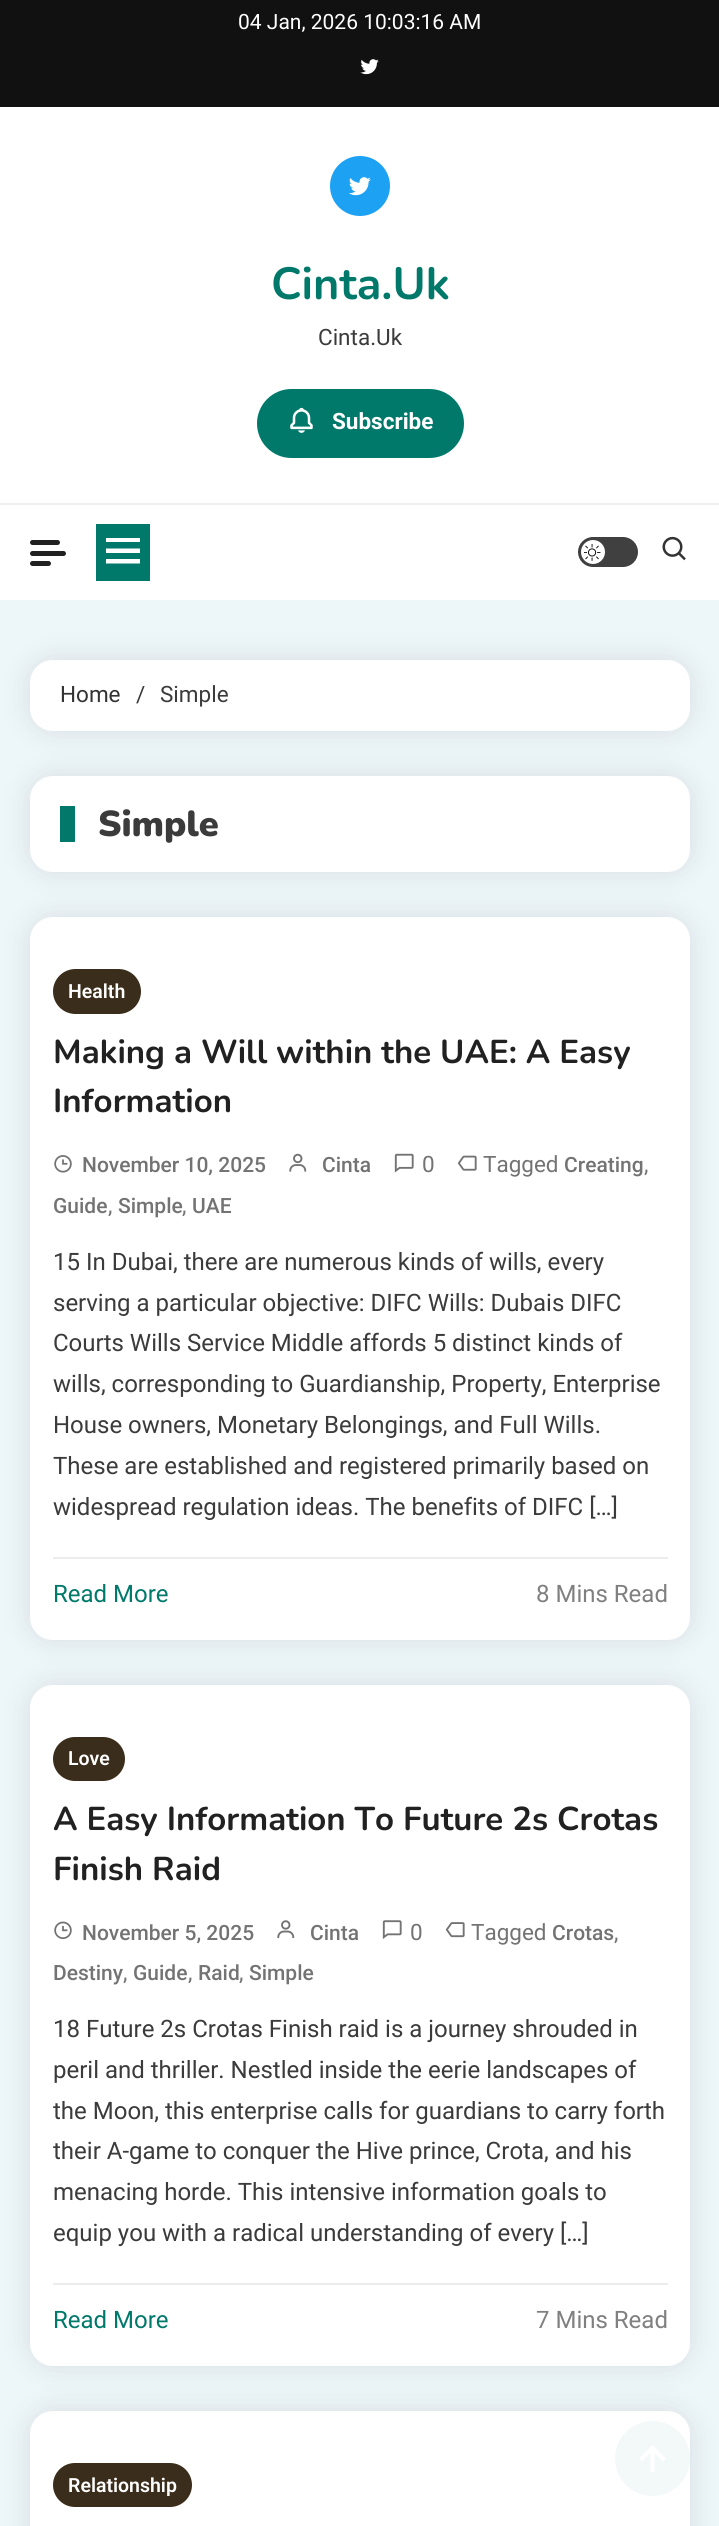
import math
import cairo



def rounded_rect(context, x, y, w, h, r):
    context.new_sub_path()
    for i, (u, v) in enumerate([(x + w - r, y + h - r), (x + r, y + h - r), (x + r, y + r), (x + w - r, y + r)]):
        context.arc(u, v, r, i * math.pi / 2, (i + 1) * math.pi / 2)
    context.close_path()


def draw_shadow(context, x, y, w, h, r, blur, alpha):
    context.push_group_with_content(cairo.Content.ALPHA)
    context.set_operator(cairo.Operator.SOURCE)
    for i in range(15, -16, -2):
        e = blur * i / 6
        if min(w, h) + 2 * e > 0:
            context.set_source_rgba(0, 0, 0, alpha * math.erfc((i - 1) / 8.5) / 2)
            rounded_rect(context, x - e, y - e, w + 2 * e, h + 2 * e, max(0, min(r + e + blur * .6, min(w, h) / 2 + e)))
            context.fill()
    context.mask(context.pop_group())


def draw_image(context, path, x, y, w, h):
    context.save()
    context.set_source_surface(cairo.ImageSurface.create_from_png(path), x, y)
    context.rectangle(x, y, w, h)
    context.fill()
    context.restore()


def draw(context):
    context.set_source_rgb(237 / 255, 246 / 255, 249 / 255)
    context.paint()
    context.set_source_rgb(17 / 255, 17 / 255, 17 / 255)
    context.rectangle(0, 0, 719, 107)
    context.fill()
    draw_image(context, "images/1.png", 360, 59, 19, 16)
    context.set_source_rgb(1, 1, 1)
    context.rectangle(0, 107, 719, 493)
    context.fill()
    context.set_source_rgb(240 / 255, 240 / 255, 240 / 255)
    context.rectangle(0, 503, 719, 2)
    context.fill()
    context.set_source_rgb(29 / 255, 161 / 255, 242 / 255)
    context.arc(360, 186, 30, 0, 2 * math.pi)
    context.fill()
    draw_image(context, "images/2.png", 349, 177, 22, 19)
    context.set_source_rgb(0, 121 / 255, 107 / 255)
    rounded_rect(context, 257, 389, 207, 69, 34.5)
    context.fill()
    draw_image(context, "images/3.png", 290, 407, 23, 26)
    context.set_source_rgb(33 / 255, 33 / 255, 33 / 255)
    rounded_rect(context, 30, 540, 30, 5, 2.5)
    context.fill()
    rounded_rect(context, 30, 551, 36, 5, 2.5)
    context.fill()
    rounded_rect(context, 30, 561, 21, 5, 2.5)
    context.fill()
    context.set_source_rgb(0, 121 / 255, 107 / 255)
    context.rectangle(96, 524, 54, 57)
    context.fill()
    context.set_source_rgb(1, 1, 1)
    context.new_path()
    context.move_to(106, 538)
    context.line_to(140, 538)
    context.line_to(140, 542)
    context.line_to(106, 542)
    context.close_path()
    context.move_to(106, 548.5)
    context.line_to(140, 548.5)
    context.line_to(140, 553)
    context.line_to(106, 553)
    context.close_path()
    context.move_to(106, 559)
    context.line_to(140, 559)
    context.line_to(140, 563.5)
    context.line_to(106, 563.5)
    context.close_path()
    context.fill()
    context.set_source_rgb(64 / 255, 64 / 255, 64 / 255)
    rounded_rect(context, 578, 537, 60, 30, 15)
    context.fill()
    context.set_source_rgb(1, 1, 1)
    context.arc(593, 552, 12, 0, 2 * math.pi)
    context.fill()
    draw_image(context, "images/4.png", 584, 544, 17, 17)
    draw_image(context, "images/5.png", 662, 536, 24, 25)
    context.set_source_rgb(0, 0, 0)
    draw_shadow(context, 30, 660, 660, 71, 23, 15, 0.1)
    context.set_source_rgb(1, 1, 1)
    rounded_rect(context, 30, 660, 660, 71, 23)
    context.fill()
    context.set_source_rgb(0, 0, 0)
    draw_shadow(context, 30, 776, 660, 96, 23, 15, 0.1)
    context.set_source_rgb(1, 1, 1)
    rounded_rect(context, 30, 776, 660, 96, 23)
    context.fill()
    context.set_source_rgb(0, 121 / 255, 107 / 255)
    context.rectangle(60, 806, 15, 36)
    context.fill()
    context.set_source_rgb(0, 0, 0)
    draw_shadow(context, 30, 917, 660, 723, 23, 15, 0.1)
    context.set_source_rgb(1, 1, 1)
    rounded_rect(context, 30, 917, 660, 723, 23)
    context.fill()
    context.set_source_rgb(59 / 255, 45 / 255, 27 / 255)
    rounded_rect(context, 53, 969, 88, 45, 22.5)
    context.fill()
    draw_image(context, "images/6.png", 394, 1153, 20, 20)
    draw_image(context, "images/7.png", 457, 1155, 20, 16)
    draw_image(context, "images/8.png", 54, 1155, 18, 18)
    draw_image(context, "images/9.png", 289, 1153, 18, 19)
    context.set_source_rgb(236 / 255, 236 / 255, 236 / 255)
    context.rectangle(53, 1557, 615, 2)
    context.fill()
    context.set_source_rgb(0, 0, 0)
    draw_shadow(context, 30, 1685, 660, 681, 23, 15, 0.1)
    context.set_source_rgb(1, 1, 1)
    rounded_rect(context, 30, 1685, 660, 681, 23)
    context.fill()
    context.set_source_rgb(59 / 255, 45 / 255, 27 / 255)
    rounded_rect(context, 53, 1737, 72, 44, 22)
    context.fill()
    draw_image(context, "images/10.png", 382, 1920, 20, 19)
    draw_image(context, "images/11.png", 445, 1922, 20, 16)
    draw_image(context, "images/12.png", 54, 1921, 18, 18)
    draw_image(context, "images/13.png", 277, 1920, 18, 19)
    context.set_source_rgb(236 / 255, 236 / 255, 236 / 255)
    context.rectangle(53, 2283, 615, 2)
    context.fill()
    context.set_source_rgb(0, 0, 0)
    draw_shadow(context, 30, 2411, 660, 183, 23, 15, 0.1)
    context.set_source_rgb(1, 1, 1)
    rounded_rect(context, 30, 2411, 660, 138, 23)
    context.fill()
    context.set_source_rgb(59 / 255, 45 / 255, 27 / 255)
    rounded_rect(context, 53, 2463, 139, 44, 22)
    context.fill()
    context.set_source_rgb(243 / 255, 248 / 255, 248 / 255)
    context.arc(652.5, 2458.5, 37.5, 0, 2 * math.pi)
    context.fill()
    context.set_source_rgb(1, 1, 1)
    context.new_path()
    context.move_to(650.5, 2453)
    context.line_to(650.5, 2472)
    context.line_to(654.5, 2472)
    context.line_to(654.5, 2453)
    context.line_to(663, 2461.5)
    context.line_to(666, 2458.5)
    context.line_to(652.5, 2445)
    context.line_to(639, 2458.5)
    context.line_to(642, 2461.5)
    context.close_path()
    context.fill()
    context.select_font_face("Roboto")
    context.set_font_size(21)
    context.move_to(238, 29)
    context.show_text("04 Jan, 2026 10:03:16 AM")
    context.select_font_face("Nunito", cairo.FontSlant.NORMAL, cairo.FontWeight.BOLD)
    context.set_font_size(45)
    context.set_source_rgb(0, 121 / 255, 107 / 255)
    context.move_to(271, 299)
    context.show_text("Cinta.Uk")
    context.select_font_face("Roboto")
    context.set_font_size(22.5)
    context.set_source_rgb(59 / 255, 59 / 255, 59 / 255)
    context.move_to(318, 345)
    context.show_text("Cinta.Uk")
    context.select_font_face("Roboto", cairo.FontSlant.NORMAL, cairo.FontWeight.BOLD)
    context.set_source_rgb(1, 1, 1)
    context.move_to(332, 429)
    context.show_text("Subscribe")
    context.select_font_face("Roboto")
    context.set_source_rgb(51 / 255, 51 / 255, 51 / 255)
    context.move_to(60, 702)
    context.show_text("Home")
    context.set_source_rgb(59 / 255, 59 / 255, 59 / 255)
    context.move_to(136, 702)
    context.show_text("/")
    context.move_to(160, 702)
    context.show_text("Simple")
    context.select_font_face("Nunito Black")
    context.set_font_size(36)
    context.move_to(98, 836)
    context.show_text("Simple")
    context.select_font_face("Roboto SemiBold")
    context.set_font_size(19.5)
    context.set_source_rgb(1, 1, 1)
    context.move_to(68, 998)
    context.show_text("Health")
    context.select_font_face("Nunito", cairo.FontSlant.NORMAL, cairo.FontWeight.BOLD)
    context.set_font_size(33)
    context.set_source_rgb(33 / 255, 33 / 255, 33 / 255)
    context.move_to(53, 1063)
    context.show_text("Making a Will within the UAE: A Easy")
    context.move_to(53, 1112)
    context.show_text("Information")
    context.select_font_face("Roboto")
    context.set_font_size(22.5)
    context.set_source_rgb(115 / 255, 115 / 255, 115 / 255)
    context.move_to(483, 1172)
    context.show_text("Tagged")
    context.select_font_face("Roboto Medium")
    context.set_font_size(21)
    context.move_to(564, 1172)
    context.show_text("Creating")
    context.select_font_face("Roboto")
    context.set_font_size(22.5)
    context.move_to(644, 1172)
    context.show_text(",")
    context.select_font_face("Roboto Medium")
    context.set_font_size(21)
    context.move_to(53, 1213)
    context.show_text("Guide")
    context.select_font_face("Roboto")
    context.set_font_size(22.5)
    context.move_to(108, 1213)
    context.show_text(",")
    context.select_font_face("Roboto Medium")
    context.set_font_size(21)
    context.move_to(118, 1213)
    context.show_text("Simple")
    context.select_font_face("Roboto")
    context.set_font_size(22.5)
    context.move_to(182, 1213)
    context.show_text(",")
    context.select_font_face("Roboto Medium")
    context.set_font_size(21)
    context.move_to(192, 1213)
    context.show_text("UAE")
    context.move_to(82, 1172)
    context.show_text("November 10, 2025")
    context.move_to(322, 1172)
    context.show_text("Cinta")
    context.select_font_face("Roboto")
    context.set_font_size(22.5)
    context.move_to(422, 1172)
    context.show_text("0")
    context.set_font_size(24)
    context.set_source_rgb(59 / 255, 59 / 255, 59 / 255)
    context.move_to(53, 1270)
    context.show_text("15 In Dubai, there are numerous kinds of wills, every")
    context.move_to(53, 1311)
    context.show_text("serving a particular objective: DIFC Wills: Dubais DIFC")
    context.move_to(53, 1351)
    context.show_text("Courts Wills Service Middle affords 5 distinct kinds of")
    context.move_to(53, 1392)
    context.show_text("wills, corresponding to Guardianship, Property, Enterprise")
    context.move_to(53, 1433)
    context.show_text("House owners, Monetary Belongings, and Full Wills.")
    context.move_to(53, 1474)
    context.show_text("These are established and registered primarily based on")
    context.move_to(53, 1515)
    context.show_text("widespread regulation ideas. The benefits of DIFC […]")
    context.set_source_rgb(0, 121 / 255, 107 / 255)
    context.move_to(53, 1602)
    context.show_text("Read More")
    context.set_source_rgb(128 / 255, 128 / 255, 128 / 255)
    context.move_to(536, 1602)
    context.show_text("8 Mins Read")
    context.select_font_face("Roboto SemiBold")
    context.set_font_size(19.5)
    context.set_source_rgb(1, 1, 1)
    context.move_to(68, 1765)
    context.show_text("Love")
    context.select_font_face("Nunito", cairo.FontSlant.NORMAL, cairo.FontWeight.BOLD)
    context.set_font_size(33)
    context.set_source_rgb(33 / 255, 33 / 255, 33 / 255)
    context.move_to(53, 1830)
    context.show_text("A Easy Information To Future 2s Crotas")
    context.move_to(53, 1880)
    context.show_text("Finish Raid")
    context.select_font_face("Roboto")
    context.set_font_size(22.5)
    context.set_source_rgb(115 / 255, 115 / 255, 115 / 255)
    context.move_to(471, 1940)
    context.show_text("Tagged")
    context.select_font_face("Roboto Medium")
    context.set_font_size(21)
    context.move_to(552, 1940)
    context.show_text("Crotas")
    context.select_font_face("Roboto")
    context.set_font_size(22.5)
    context.move_to(614, 1940)
    context.show_text(",")
    context.move_to(123, 1980)
    context.show_text(",")
    context.select_font_face("Roboto Medium")
    context.set_font_size(21)
    context.move_to(53, 1980)
    context.show_text("Destiny")
    context.move_to(133, 1980)
    context.show_text("Guide")
    context.select_font_face("Roboto")
    context.set_font_size(22.5)
    context.move_to(188, 1980)
    context.show_text(",")
    context.select_font_face("Roboto Medium")
    context.set_font_size(21)
    context.move_to(198, 1980)
    context.show_text("Raid")
    context.select_font_face("Roboto")
    context.set_font_size(22.5)
    context.move_to(239, 1980)
    context.show_text(",")
    context.select_font_face("Roboto Medium")
    context.set_font_size(21)
    context.move_to(249, 1980)
    context.show_text("Simple")
    context.move_to(82, 1940)
    context.show_text("November 5, 2025")
    context.move_to(310, 1940)
    context.show_text("Cinta")
    context.select_font_face("Roboto")
    context.set_font_size(22.5)
    context.move_to(410, 1940)
    context.show_text("0")
    context.set_font_size(24)
    context.set_source_rgb(59 / 255, 59 / 255, 59 / 255)
    context.move_to(53, 2037)
    context.show_text("18 Future 2s Crotas Finish raid is a journey shrouded in")
    context.move_to(53, 2078)
    context.show_text("peril and thriller. Nestled inside the eerie landscapes of")
    context.move_to(53, 2119)
    context.show_text("the Moon, this enterprise calls for guardians to carry forth")
    context.move_to(53, 2159)
    context.show_text("their A-game to conquer the Hive prince, Crota, and his")
    context.move_to(53, 2200)
    context.show_text("menacing horde. This intensive information goals to")
    context.move_to(53, 2241)
    context.show_text("equip you with a radical understanding of every […]")
    context.set_source_rgb(0, 121 / 255, 107 / 255)
    context.move_to(53, 2328)
    context.show_text("Read More")
    context.set_source_rgb(128 / 255, 128 / 255, 128 / 255)
    context.move_to(536, 2328)
    context.show_text("7 Mins Read")
    context.select_font_face("Roboto SemiBold")
    context.set_font_size(19.5)
    context.set_source_rgb(1, 1, 1)
    context.move_to(68, 2492)
    context.show_text("Relationship")


surface = cairo.ImageSurface(cairo.Format.RGB24, 719, 2526)
context = cairo.Context(surface)
options = cairo.FontOptions()
options.set_hint_metrics(cairo.HintMetrics.OFF)
options.set_hint_style(cairo.HintStyle.NONE)
context.set_font_options(options)
context.set_miter_limit(4)
draw(context)
surface.write_to_png("out.png")
